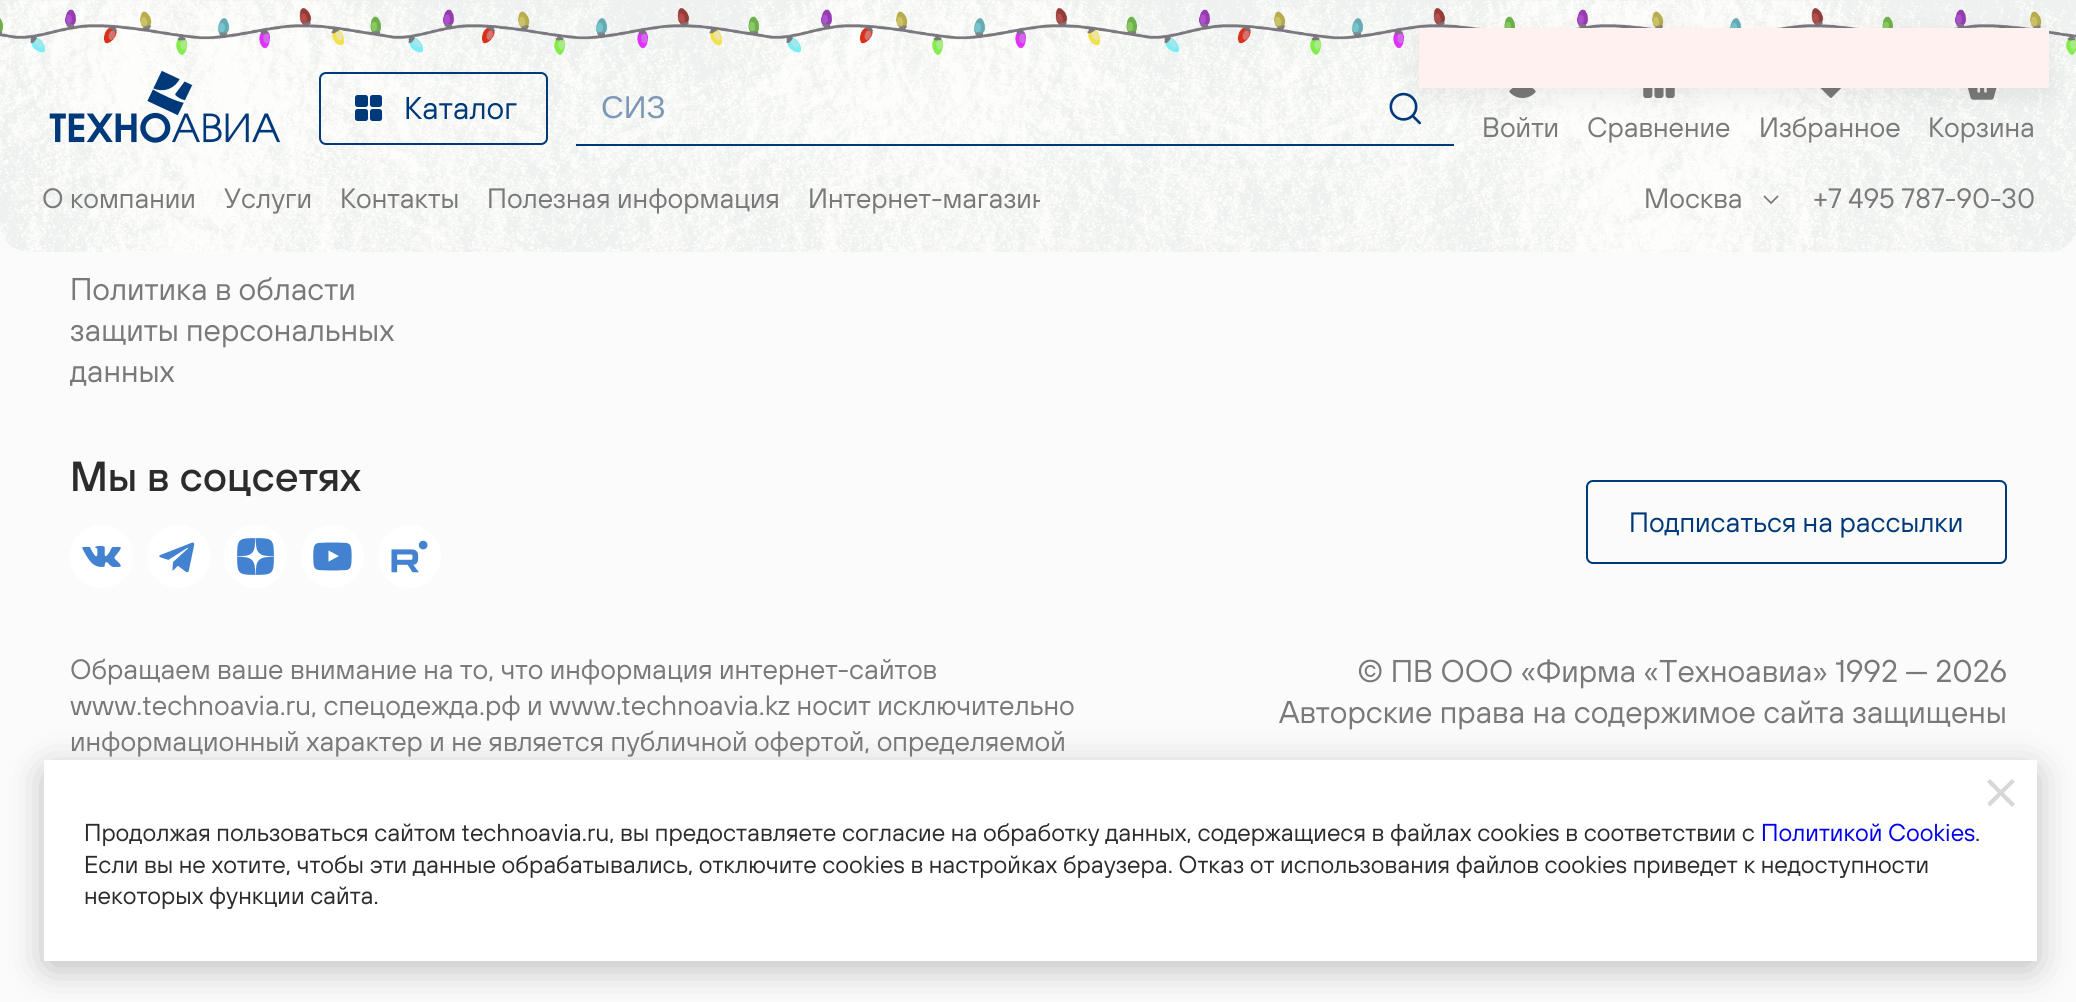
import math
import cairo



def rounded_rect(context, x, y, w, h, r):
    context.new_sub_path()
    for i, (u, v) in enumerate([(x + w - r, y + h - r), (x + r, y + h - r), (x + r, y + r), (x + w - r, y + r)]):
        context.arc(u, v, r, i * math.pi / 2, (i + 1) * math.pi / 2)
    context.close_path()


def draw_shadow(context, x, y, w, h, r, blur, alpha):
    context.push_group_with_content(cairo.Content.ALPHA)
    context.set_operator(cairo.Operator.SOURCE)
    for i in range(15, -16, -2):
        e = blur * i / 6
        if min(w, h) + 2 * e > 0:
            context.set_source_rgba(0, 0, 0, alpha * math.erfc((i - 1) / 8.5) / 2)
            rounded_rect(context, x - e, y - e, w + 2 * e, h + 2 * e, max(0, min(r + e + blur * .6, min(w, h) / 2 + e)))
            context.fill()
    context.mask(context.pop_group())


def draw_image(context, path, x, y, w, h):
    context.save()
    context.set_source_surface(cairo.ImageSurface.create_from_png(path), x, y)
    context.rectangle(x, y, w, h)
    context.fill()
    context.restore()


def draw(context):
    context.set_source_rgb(251 / 255, 251 / 255, 251 / 255)
    context.paint()
    draw_image(context, "images/1.png", 0, 0, 2076, 252)
    draw_image(context, "images/2.png", 0, 8, 2076, 47)
    draw_image(context, "images/4.png", 1389, 92, 32, 33)
    draw_image(context, "images/5.png", 1509, 88, 27, 10)
    draw_image(context, "images/6.png", 1643, 88, 32, 10)
    draw_image(context, "images/7.png", 1820, 88, 22, 10)
    draw_image(context, "images/8.png", 1967, 88, 30, 12)
    context.set_source_rgb(0, 0, 0)
    draw_shadow(context, 1419, 37, 630, 59, 0, 13, 0.07)
    context.set_source_rgb(1, 241 / 255, 240 / 255)
    context.rectangle(1419, 28, 630, 60)
    context.fill()
    draw_image(context, "images/3.png", 49, 70, 231, 73)
    rounded_rect(context, 320, 73, 227, 71, 6)
    context.set_source_rgb(0, 57 / 255, 122 / 255)
    context.stroke()
    rounded_rect(context, 355, 95, 13, 12, 2.5)
    context.fill()
    rounded_rect(context, 355, 109, 13, 12, 2.5)
    context.fill()
    rounded_rect(context, 370, 95, 12, 12, 2.5)
    context.fill()
    rounded_rect(context, 370, 109, 12, 12, 2.5)
    context.fill()
    context.rectangle(576, 144, 878, 2)
    context.fill()
    draw_image(context, "images/9.png", 1763, 195, 16, 9)
    context.set_source_rgb(1, 1, 1)
    context.arc(101.5, 556.5, 31.5, 0, 2 * math.pi)
    context.fill()
    draw_image(context, "images/10.png", 82, 546, 39, 21)
    context.arc(178.5, 556.5, 31.5, 0, 2 * math.pi)
    context.fill()
    draw_image(context, "images/11.png", 159, 542, 36, 31)
    context.arc(255.5, 556.5, 31.5, 0, 2 * math.pi)
    context.fill()
    draw_image(context, "images/12.png", 237, 538, 37, 37)
    context.arc(332.5, 556.5, 31.5, 0, 2 * math.pi)
    context.fill()
    draw_image(context, "images/13.png", 313, 542, 39, 29)
    context.arc(409.5, 556.5, 31.5, 0, 2 * math.pi)
    context.fill()
    draw_image(context, "images/14.png", 391, 540, 37, 33)
    rounded_rect(context, 1587, 481, 419, 82, 6)
    context.set_source_rgb(0, 57 / 255, 122 / 255)
    context.stroke()
    context.set_source_rgb(0, 0, 0)
    draw_shadow(context, 49, 774, 1983, 190, 0, 20, 0.3)
    context.set_source_rgb(1, 1, 1)
    context.rectangle(44, 760, 1993, 201)
    context.fill()
    context.set_source_rgb(215 / 255, 215 / 255, 215 / 255)
    context.new_path()
    context.move_to(1987, 782)
    context.line_to(1990, 779)
    context.line_to(2015, 804)
    context.line_to(2012, 807)
    context.close_path()
    context.fill()
    context.save()
    context.rectangle(1988, 779, 28, 28)
    context.clip()
    context.new_path()
    context.move_to(2012, 779)
    context.line_to(2015, 781.5)
    context.line_to(1990, 806.5)
    context.line_to(1987, 803.5)
    context.close_path()
    context.fill()
    context.restore()
    context.select_font_face("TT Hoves")
    context.set_font_size(31.5)
    context.set_source_rgb(0, 57 / 255, 122 / 255)
    context.move_to(404, 119)
    context.show_text("Каталог")
    context.select_font_face("Liberation Sans")
    context.set_source_rgb(123 / 255, 152 / 255, 183 / 255)
    context.move_to(601, 118)
    context.show_text("СИЗ")
    context.select_font_face("TT Hoves")
    context.set_font_size(28)
    context.set_source_rgb(121 / 255, 121 / 255, 121 / 255)
    context.move_to(1482, 137)
    context.show_text("Войти")
    context.move_to(1587, 137)
    context.show_text("Сравнение")
    context.move_to(1759, 137)
    context.show_text("Избранное")
    context.move_to(1928, 137)
    context.show_text("Корзина")
    context.move_to(42, 208)
    context.show_text("О компании")
    context.move_to(224, 208)
    context.show_text("Услуги")
    context.move_to(340, 208)
    context.show_text("Контакты")
    context.move_to(487, 208)
    context.show_text("Полезная информация")
    context.save()
    context.rectangle(42, 180, 998, 37)
    context.clip()
    context.move_to(808, 208)
    context.show_text("Интернет-магазин")
    context.restore()
    context.move_to(1644, 208)
    context.show_text("Москва")
    context.move_to(1813, 208)
    context.show_text("+7 495 787-90-30")
    context.set_font_size(31.5)
    context.move_to(70, 300)
    context.show_text("Политика в области")
    context.move_to(70, 341)
    context.show_text("защиты персональных")
    context.move_to(70, 382)
    context.show_text("данных")
    context.select_font_face("TT Hoves Medium")
    context.set_font_size(42)
    context.set_source_rgb(45 / 255, 44 / 255, 44 / 255)
    context.move_to(70, 491)
    context.show_text("Мы в соцсетях")
    context.select_font_face("TT Hoves")
    context.set_font_size(28)
    context.set_source_rgb(0, 57 / 255, 122 / 255)
    context.move_to(1629, 532)
    context.show_text("Подписаться на рассылки")
    context.set_source_rgb(121 / 255, 121 / 255, 121 / 255)
    context.move_to(70, 679)
    context.show_text("Обращаем ваше внимание на то, что информация интернет-сайтов")
    context.move_to(70, 715)
    context.show_text("www.technoavia.ru, спецодежда.рф и www.technoavia.kz носит исключительно")
    context.move_to(70, 751)
    context.show_text("информационный характер и не является публичной офертой, определяемой")
    context.set_font_size(31.5)
    context.move_to(1357, 682)
    context.show_text("© ПВ ООО «Фирма «Техноавиа» 1992 — 2026")
    context.move_to(1279, 723)
    context.show_text("Авторские права на содержимое сайта защищены")
    context.set_font_size(24.5)
    context.set_source_rgb(45 / 255, 44 / 255, 44 / 255)
    context.move_to(84, 841)
    context.show_text("Продолжая пользоваться сайтом technoavia.ru, вы предоставляете согласие на обработку данных, содержащиеся в файлах cookies в соответствии с")
    context.set_source_rgb(0, 0, 238 / 255)
    context.move_to(1761, 841)
    context.show_text("Политикой Cookies")
    context.set_source_rgb(45 / 255, 44 / 255, 44 / 255)
    context.move_to(1975, 841)
    context.show_text(".")
    context.move_to(84, 873)
    context.show_text("Если вы не хотите, чтобы эти данные обрабатывались, отключите cookies в настройках браузера. Отказ от использования файлов cookies приведет к недоступности")
    context.move_to(84, 904)
    context.show_text("некоторых функции cайта.")


surface = cairo.ImageSurface(cairo.Format.RGB24, 2076, 1002)
context = cairo.Context(surface)
options = cairo.FontOptions()
options.set_hint_metrics(cairo.HintMetrics.OFF)
options.set_hint_style(cairo.HintStyle.NONE)
context.set_font_options(options)
context.set_miter_limit(4)
draw(context)
surface.write_to_png("out.png")
